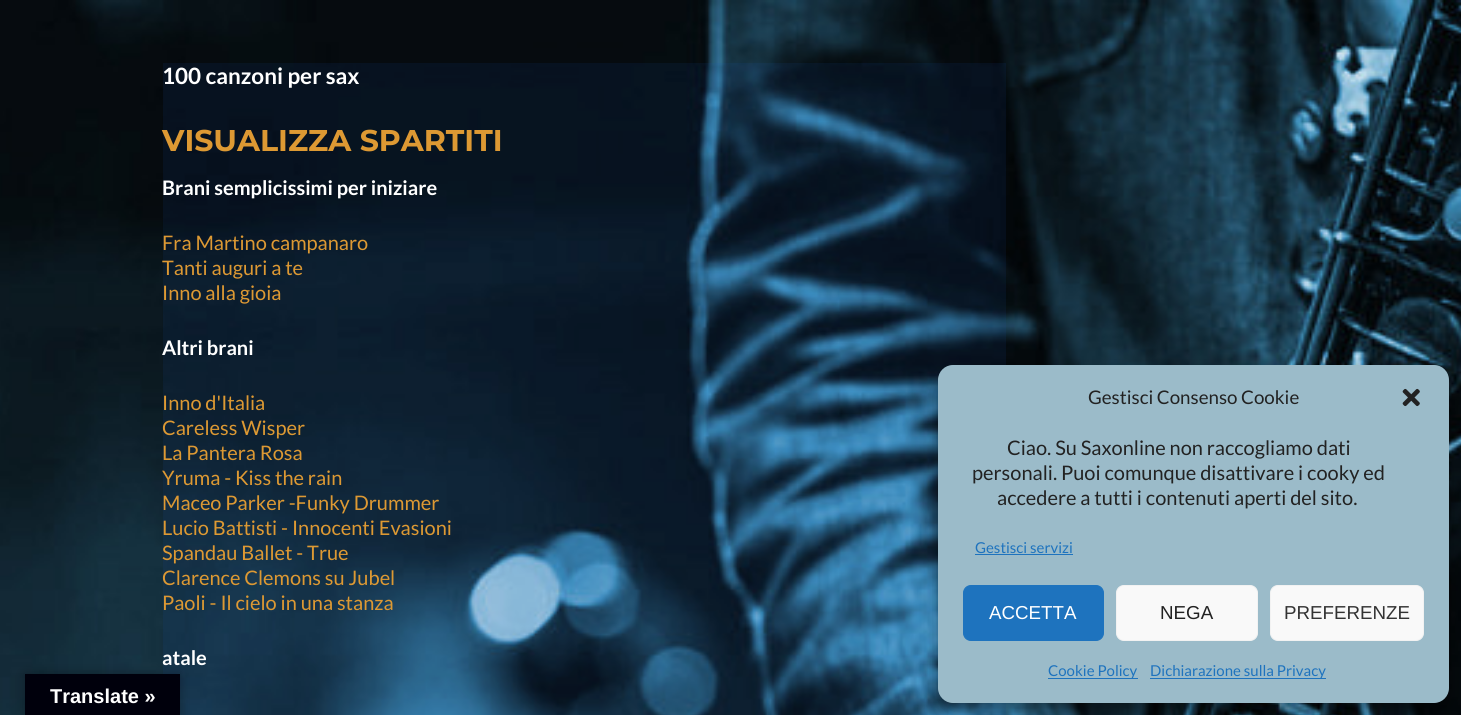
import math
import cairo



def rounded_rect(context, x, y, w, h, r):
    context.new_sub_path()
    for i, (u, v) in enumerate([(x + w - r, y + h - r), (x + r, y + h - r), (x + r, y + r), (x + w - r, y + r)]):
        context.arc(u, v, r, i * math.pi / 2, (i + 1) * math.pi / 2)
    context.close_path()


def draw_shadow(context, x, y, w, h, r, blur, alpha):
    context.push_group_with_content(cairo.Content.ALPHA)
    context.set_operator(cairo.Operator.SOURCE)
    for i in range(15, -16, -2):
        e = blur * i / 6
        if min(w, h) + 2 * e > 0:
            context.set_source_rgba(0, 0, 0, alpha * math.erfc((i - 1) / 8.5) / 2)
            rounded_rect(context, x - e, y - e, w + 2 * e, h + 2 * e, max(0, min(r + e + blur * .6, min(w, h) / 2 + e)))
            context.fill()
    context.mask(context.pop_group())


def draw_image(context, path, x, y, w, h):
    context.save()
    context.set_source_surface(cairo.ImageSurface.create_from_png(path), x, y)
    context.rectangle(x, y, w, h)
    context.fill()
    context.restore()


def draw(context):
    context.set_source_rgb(1, 1, 1)
    context.paint()
    draw_image(context, "images/1.png", 0, 0, 1461, 715)
    context.set_source_rgba(26 / 255, 87 / 255, 186 / 255, 0.1)
    context.rectangle(163, 63, 843, 652)
    context.fill()
    context.set_source_rgb(17 / 255, 37 / 255, 48 / 255)
    context.rectangle(1025, 75, 1, 1)
    context.fill()
    context.set_source_rgb(0, 0, 0)
    draw_shadow(context, 938, 373, 511, 337, 15, 4, 0.23)
    draw_shadow(context, 938, 378, 511, 337, 15, 12.5, 0.19)
    context.set_source_rgb(155 / 255, 187 / 255, 201 / 255)
    rounded_rect(context, 938, 365, 511, 338, 15)
    context.fill()
    draw_image(context, "images/2.png", 1402, 388, 18, 19)
    context.set_source_rgb(30 / 255, 115 / 255, 190 / 255)
    context.rectangle(975, 554, 98, 1)
    context.fill()
    rounded_rect(context, 963.5, 585.5, 140, 55, 7.5)
    context.fill_preserve()
    context.set_line_width(1)
    context.stroke()
    context.set_source_rgb(249 / 255, 249 / 255, 249 / 255)
    rounded_rect(context, 1116.5, 585.5, 141, 55, 7.5)
    context.fill_preserve()
    context.set_source_rgb(242 / 255, 242 / 255, 242 / 255)
    context.stroke()
    context.set_source_rgb(249 / 255, 249 / 255, 249 / 255)
    rounded_rect(context, 1270.5, 585.5, 153, 55, 7.5)
    context.fill_preserve()
    context.set_source_rgb(242 / 255, 242 / 255, 242 / 255)
    context.stroke()
    context.set_source_rgb(30 / 255, 115 / 255, 190 / 255)
    context.rectangle(1048, 678, 90, 1)
    context.fill()
    context.rectangle(1150, 678, 176, 1)
    context.fill()
    context.set_source_rgb(0, 0, 0)
    draw_shadow(context, 25, 674, 155, 41, 0, 5.5, 0.3)
    context.set_source_rgb(0, 0, 12 / 255)
    context.rectangle(25, 674, 155, 41)
    context.fill()
    context.select_font_face("Lato", cairo.FontSlant.NORMAL, cairo.FontWeight.BOLD)
    context.set_font_size(22.5)
    context.set_source_rgb(1, 1, 1)
    context.move_to(162, 84)
    context.show_text("100 canzoni per sax")
    context.select_font_face("Montserrat", cairo.FontSlant.NORMAL, cairo.FontWeight.BOLD)
    context.set_font_size(30)
    context.set_source_rgb(221 / 255, 153 / 255, 51 / 255)
    context.move_to(162, 151)
    context.show_text("VISUALIZZA SPARTITI")
    context.select_font_face("Lato", cairo.FontSlant.NORMAL, cairo.FontWeight.BOLD)
    context.set_font_size(20)
    context.set_source_rgb(1, 1, 1)
    context.move_to(162, 195)
    context.show_text("Brani semplicissimi per iniziare")
    context.select_font_face("Lato")
    context.set_source_rgb(221 / 255, 153 / 255, 51 / 255)
    context.move_to(162, 250)
    context.show_text("Fra Martino campanaro")
    context.move_to(162, 275)
    context.show_text("Tanti auguri a te")
    context.move_to(162, 300)
    context.show_text("Inno alla gioia")
    context.select_font_face("Lato", cairo.FontSlant.NORMAL, cairo.FontWeight.BOLD)
    context.set_source_rgb(1, 1, 1)
    context.move_to(162, 355)
    context.show_text("Altri brani")
    context.select_font_face("Lato")
    context.set_source_rgb(221 / 255, 153 / 255, 51 / 255)
    context.move_to(162, 410)
    context.show_text("Inno d'Italia")
    context.move_to(162, 435)
    context.show_text("Careless Wisper")
    context.move_to(162, 460)
    context.show_text("La Pantera Rosa")
    context.move_to(162, 485)
    context.show_text("Yruma - Kiss the rain")
    context.move_to(162, 510)
    context.show_text("Maceo Parker -Funky Drummer")
    context.move_to(162, 535)
    context.show_text("Lucio Battisti - Innocenti Evasioni")
    context.move_to(162, 560)
    context.show_text("Spandau Ballet - True")
    context.move_to(162, 585)
    context.show_text("Clarence Clemons su Jubel")
    context.move_to(162, 610)
    context.show_text("Paoli - Il cielo in una stanza")
    context.select_font_face("Lato", cairo.FontSlant.NORMAL, cairo.FontWeight.BOLD)
    context.set_source_rgb(1, 1, 1)
    context.move_to(162, 665)
    context.show_text("atale")
    context.select_font_face("Lato")
    context.set_font_size(18.75)
    context.set_source_rgb(34 / 255, 34 / 255, 34 / 255)
    context.move_to(1088, 404)
    context.show_text("Gestisci Consenso Cookie")
    context.set_font_size(20)
    context.move_to(1007, 455)
    context.show_text("Ciao. Su Saxonline non raccogliamo dati")
    context.move_to(972, 480)
    context.show_text("personali. Puoi comunque disattivare i cooky ed")
    context.move_to(997, 505)
    context.show_text("accedere a tutti i contenuti aperti del sito.")
    context.set_font_size(15)
    context.set_source_rgb(30 / 255, 115 / 255, 190 / 255)
    context.move_to(975, 553)
    context.show_text("Gestisci servizi")
    context.select_font_face("Liberation Sans")
    context.set_font_size(18.75)
    context.set_source_rgb(1, 1, 1)
    context.move_to(989, 619)
    context.show_text("ACCETTA")
    context.set_source_rgb(34 / 255, 34 / 255, 34 / 255)
    context.move_to(1160, 619)
    context.show_text("NEGA")
    context.set_source_rgb(51 / 255, 51 / 255, 51 / 255)
    context.move_to(1284, 619)
    context.show_text("PREFERENZE")
    context.select_font_face("Lato")
    context.set_font_size(15)
    context.set_source_rgb(30 / 255, 115 / 255, 190 / 255)
    context.move_to(1048, 676)
    context.show_text("Cookie Policy")
    context.move_to(1150, 676)
    context.show_text("Dichiarazione sulla Privacy")
    context.select_font_face("Liberation Sans", cairo.FontSlant.NORMAL, cairo.FontWeight.BOLD)
    context.set_font_size(20)
    context.set_source_rgb(1, 1, 1)
    context.move_to(50, 703)
    context.show_text("Translate »")


surface = cairo.ImageSurface(cairo.Format.RGB24, 1461, 715)
context = cairo.Context(surface)
options = cairo.FontOptions()
options.set_hint_metrics(cairo.HintMetrics.OFF)
options.set_hint_style(cairo.HintStyle.NONE)
context.set_font_options(options)
context.set_miter_limit(4)
draw(context)
surface.write_to_png("out.png")
